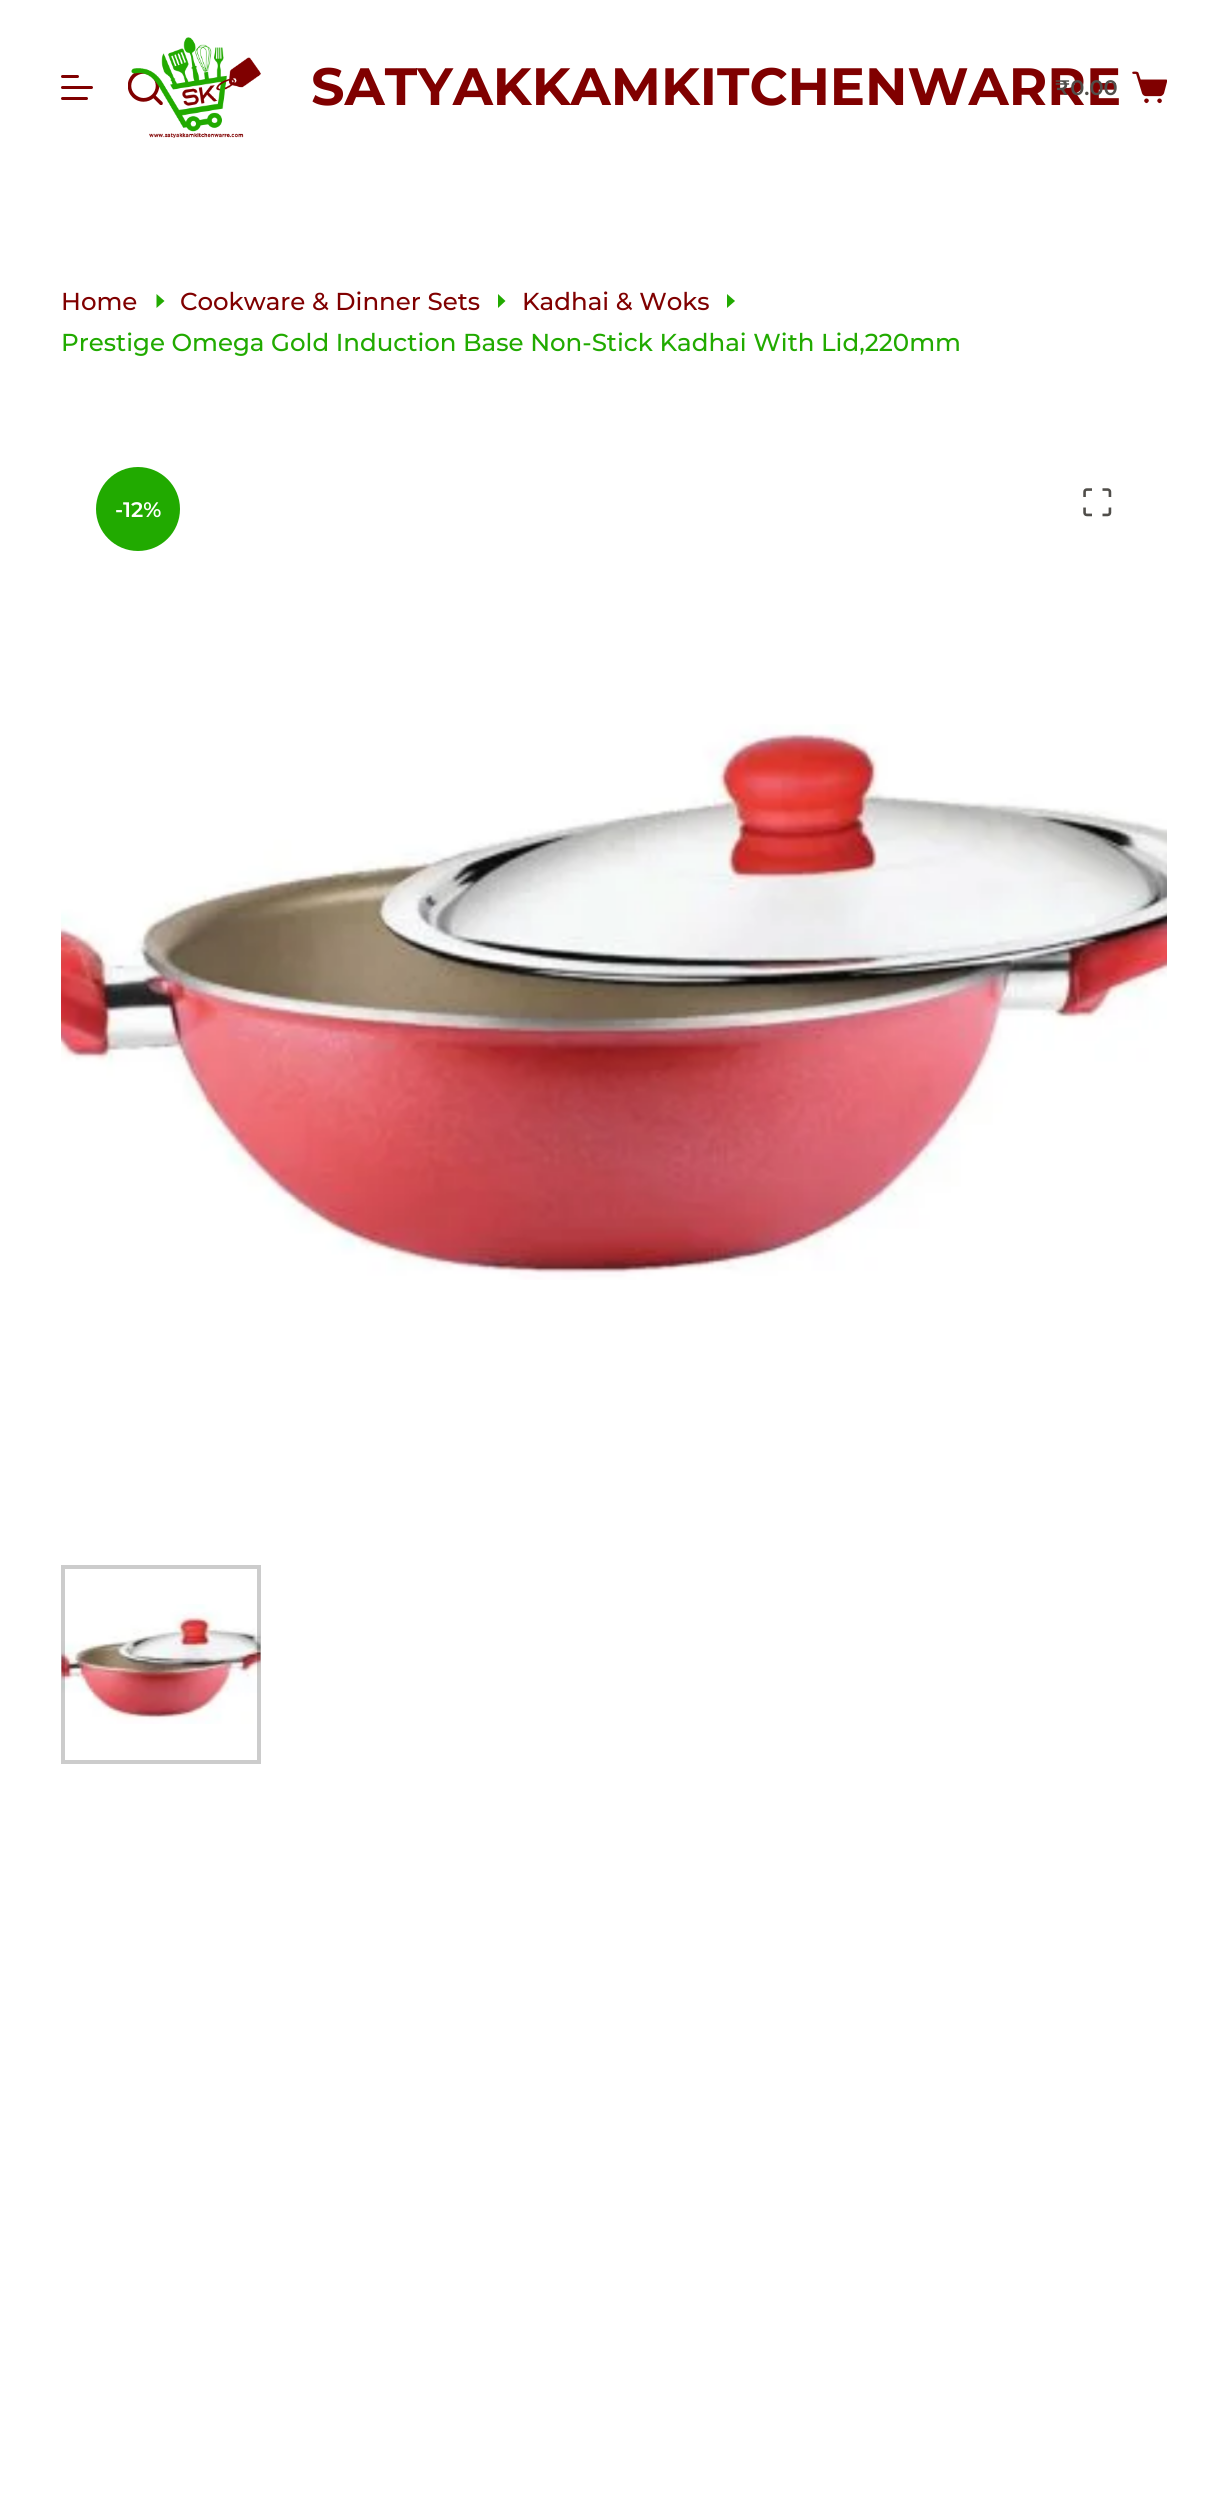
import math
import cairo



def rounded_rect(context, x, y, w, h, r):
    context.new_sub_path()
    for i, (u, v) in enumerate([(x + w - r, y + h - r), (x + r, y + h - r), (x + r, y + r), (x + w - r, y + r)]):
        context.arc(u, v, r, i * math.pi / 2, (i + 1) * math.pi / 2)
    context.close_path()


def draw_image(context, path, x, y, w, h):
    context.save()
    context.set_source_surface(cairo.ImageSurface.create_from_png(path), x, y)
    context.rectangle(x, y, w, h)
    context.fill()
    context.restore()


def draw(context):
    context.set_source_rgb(1, 1, 1)
    context.paint()
    context.set_source_rgb(128 / 255, 0, 0)
    rounded_rect(context, 61, 75, 18, 3, 1.5)
    context.fill()
    rounded_rect(context, 61, 86, 32, 3, 1.5)
    context.fill()
    rounded_rect(context, 61, 97, 27, 3, 1.5)
    context.fill()
    draw_image(context, "images/1.png", 128, 70, 35, 35)
    draw_image(context, "images/2.png", 131, 37, 130, 101)
    draw_image(context, "images/3.png", 1132, 71, 35, 33)
    context.set_source_rgb(33 / 255, 170 / 255, 0)
    context.new_path()
    context.move_to(156.5, 294)
    context.line_to(164.5, 301)
    context.line_to(156.5, 308)
    context.close_path()
    context.fill()
    context.new_path()
    context.move_to(498, 294)
    context.line_to(505.5, 301)
    context.line_to(498, 308)
    context.close_path()
    context.fill()
    context.new_path()
    context.move_to(727, 294)
    context.line_to(735, 301)
    context.line_to(727, 308)
    context.close_path()
    context.fill()
    context.arc(138, 509, 42, 0, 2 * math.pi)
    context.fill()
    draw_image(context, "images/4.png", 1083, 488, 29, 29)
    draw_image(context, "images/5.png", 61, 724, 1106, 556)
    draw_image(context, "images/6.png", 61, 1604, 200, 120)
    context.rectangle(63, 1567, 196, 195)
    context.set_source_rgba(0, 0, 0, 0.2)
    context.set_line_width(4)
    context.stroke()
    context.select_font_face("Montserrat", cairo.FontSlant.NORMAL, cairo.FontWeight.BOLD)
    context.set_font_size(52.5)
    context.set_source_rgb(128 / 255, 0, 0)
    context.move_to(311, 105)
    context.show_text("SATYAKKAMKITCHENWARRE")
    context.select_font_face("Montserrat SemiBold")
    context.set_font_size(21)
    context.set_source_rgb(80 / 255, 78 / 255, 74 / 255)
    context.move_to(1055, 95)
    context.show_text("₹0.00")
    context.select_font_face("Montserrat Medium")
    context.set_font_size(24.5)
    context.set_source_rgb(128 / 255, 0, 0)
    context.move_to(61, 310)
    context.show_text("Home")
    context.move_to(180, 310)
    context.show_text("Cookware & Dinner Sets")
    context.move_to(522, 310)
    context.show_text("Kadhai & Woks")
    context.set_source_rgb(33 / 255, 170 / 255, 0)
    context.move_to(61, 351)
    context.show_text("Prestige Omega Gold Induction Base Non-Stick Kadhai With Lid,220mm")
    context.select_font_face("Montserrat SemiBold")
    context.set_font_size(21)
    context.set_source_rgb(1, 1, 1)
    context.move_to(115, 517)
    context.show_text("-12%")


surface = cairo.ImageSurface(cairo.Format.RGB24, 1227, 2505)
context = cairo.Context(surface)
options = cairo.FontOptions()
options.set_hint_metrics(cairo.HintMetrics.OFF)
options.set_hint_style(cairo.HintStyle.NONE)
context.set_font_options(options)
context.set_miter_limit(4)
draw(context)
surface.write_to_png("out.png")
